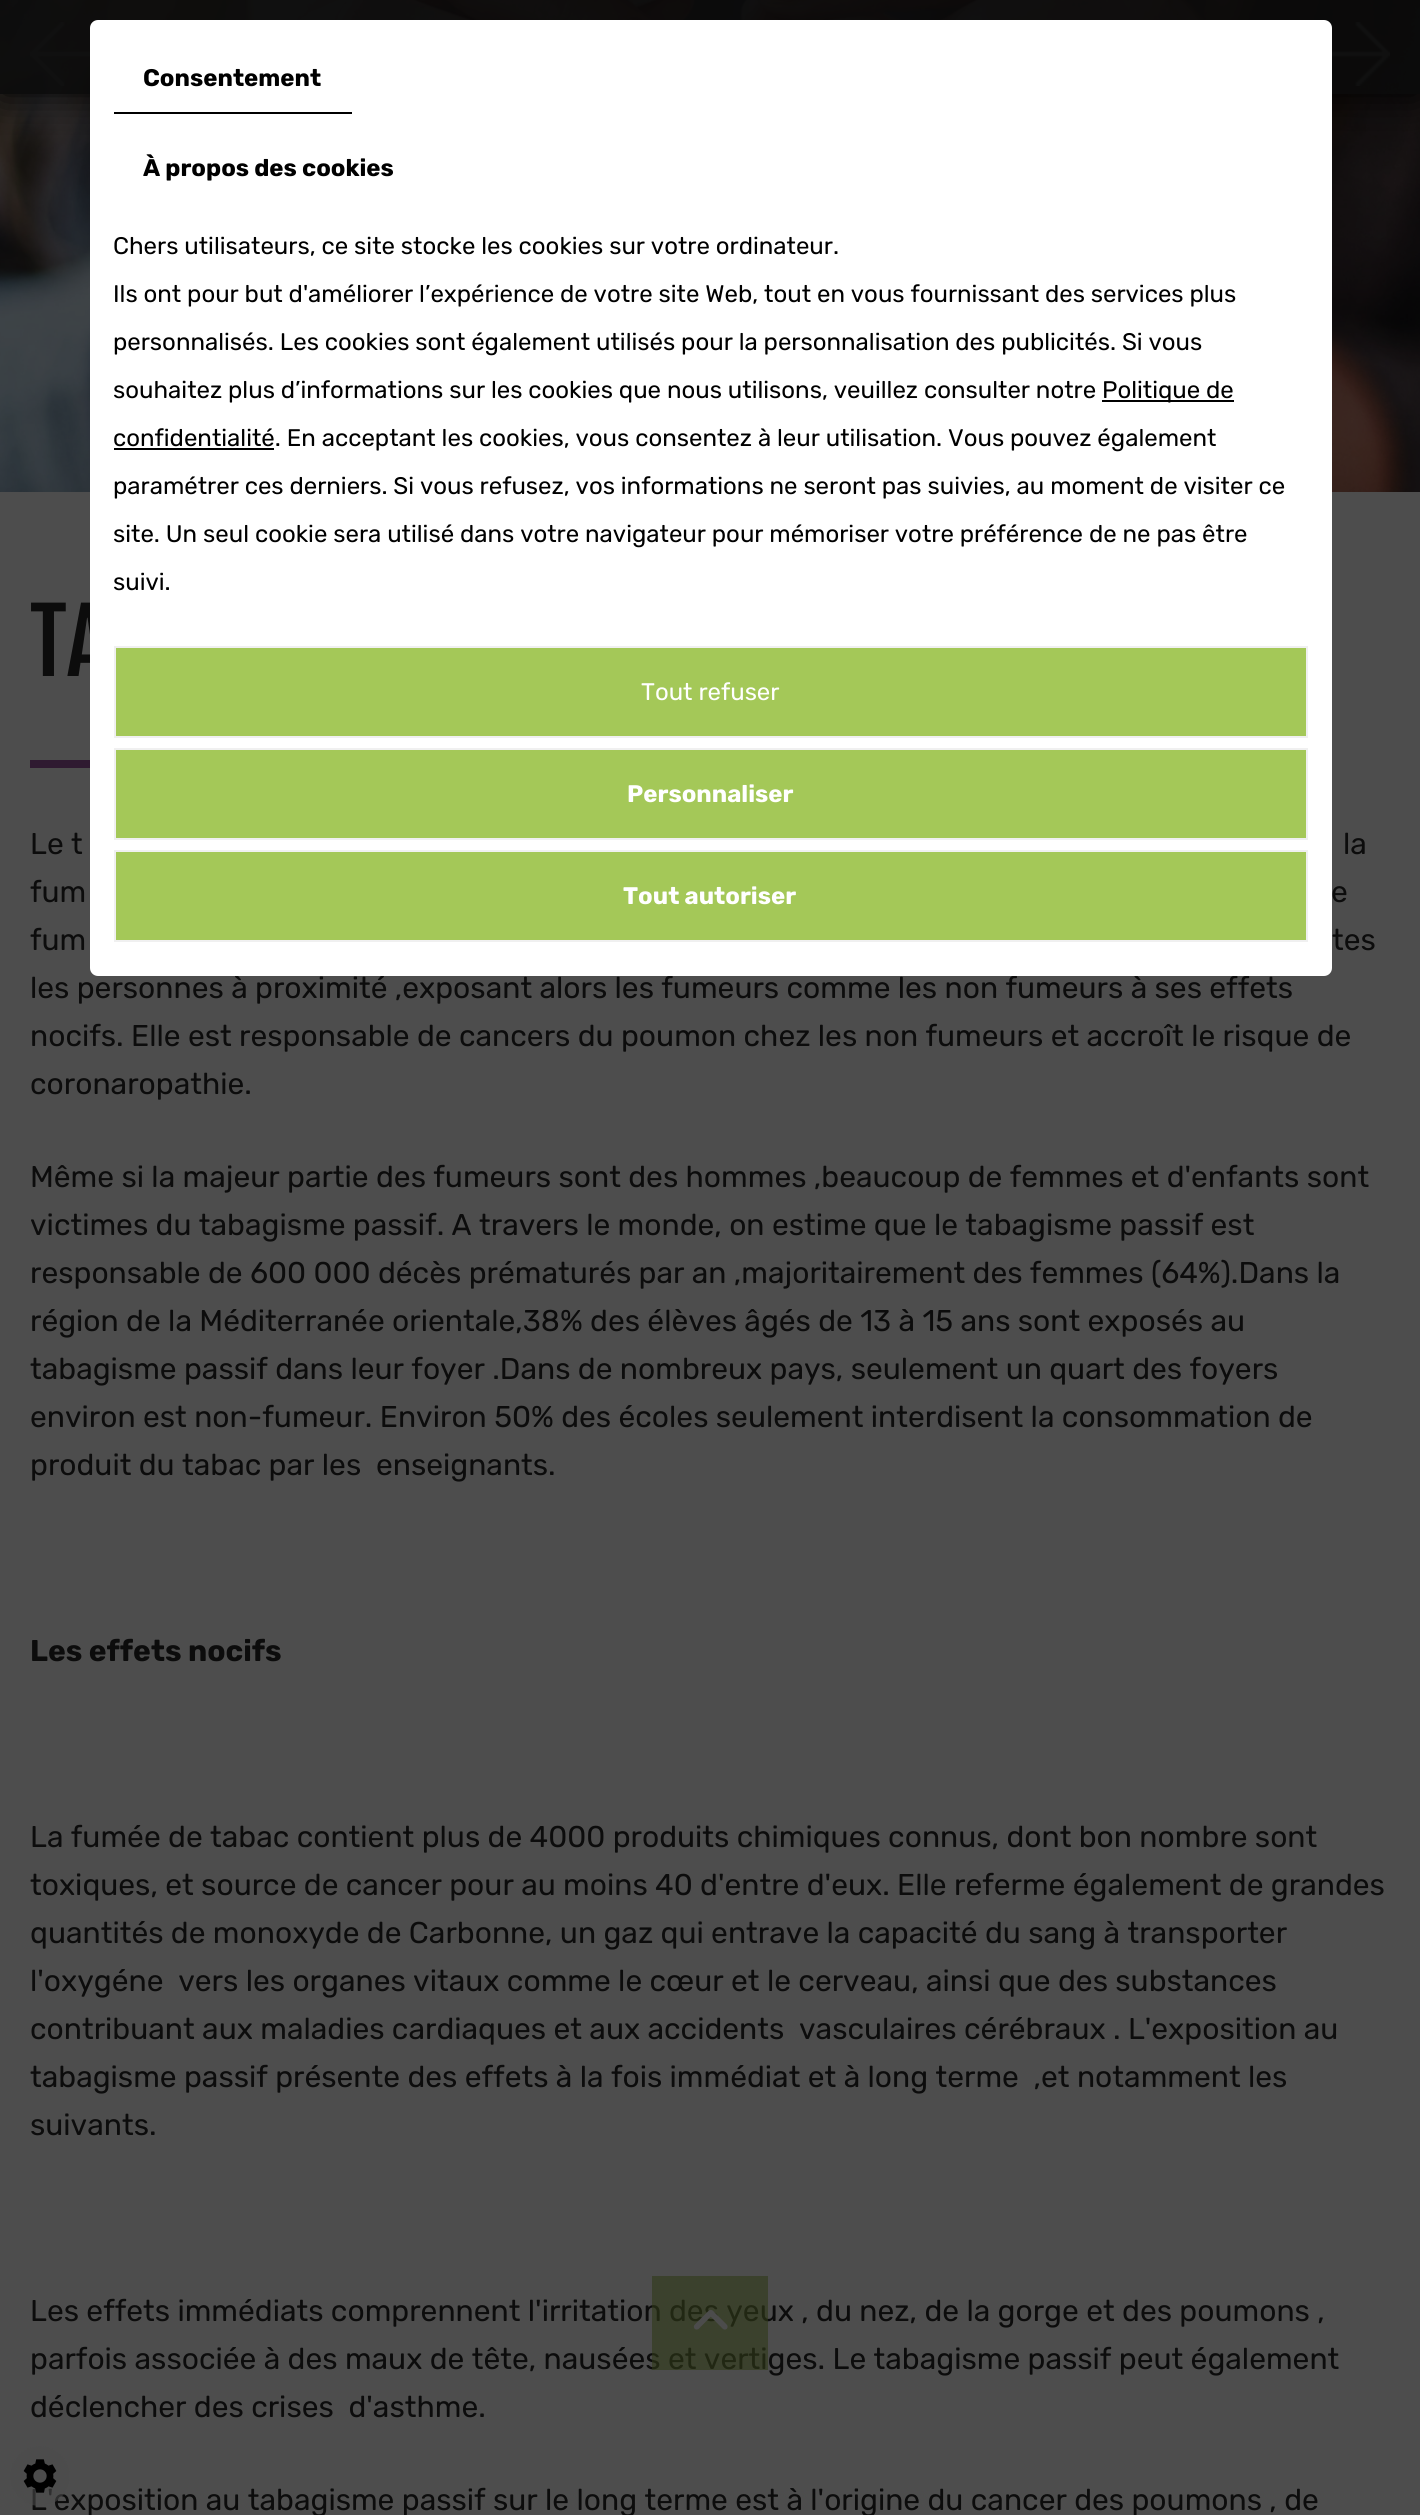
import math
import cairo



def rounded_rect(context, x, y, w, h, r):
    context.new_sub_path()
    for i, (u, v) in enumerate([(x + w - r, y + h - r), (x + r, y + h - r), (x + r, y + r), (x + w - r, y + r)]):
        context.arc(u, v, r, i * math.pi / 2, (i + 1) * math.pi / 2)
    context.close_path()


def draw_shadow(context, x, y, w, h, r, blur, alpha):
    context.push_group_with_content(cairo.Content.ALPHA)
    context.set_operator(cairo.Operator.SOURCE)
    for i in range(15, -16, -2):
        e = blur * i / 6
        if min(w, h) + 2 * e > 0:
            context.set_source_rgba(0, 0, 0, alpha * math.erfc((i - 1) / 8.5) / 2)
            rounded_rect(context, x - e, y - e, w + 2 * e, h + 2 * e, max(0, min(r + e + blur * .6, min(w, h) / 2 + e)))
            context.fill()
    context.mask(context.pop_group())


def draw_image(context, path, x, y, w, h):
    context.save()
    context.set_source_surface(cairo.ImageSurface.create_from_png(path), x, y)
    context.rectangle(x, y, w, h)
    context.fill()
    context.restore()


def draw(context):
    context.set_source_rgb(77 / 255, 77 / 255, 77 / 255)
    context.paint()
    draw_image(context, "images/1.png", 0, 0, 1420, 492)
    draw_image(context, "images/2.png", 30, 22, 60, 64)
    draw_image(context, "images/3.png", 1332, 22, 58, 64)
    context.save()
    context.rectangle(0, 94, 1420, 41)
    context.clip()
    context.set_source_rgb(0, 0, 0)
    draw_shadow(context, 0, 0, 1420, 94, 0, 20, 1)
    context.restore()
    context.set_source_rgba(10 / 255, 10 / 255, 10 / 255, 0.9)
    context.rectangle(0, 0, 1420, 94)
    context.fill()
    context.set_source_rgb(47 / 255, 26 / 255, 49 / 255)
    context.rectangle(30, 760, 60, 8)
    context.fill()
    context.select_font_face("Fjalla One")
    context.set_font_size(88)
    context.set_source_rgb(12 / 255, 12 / 255, 12 / 255)
    context.move_to(30, 676)
    context.show_text("TA")
    context.select_font_face("Rubik")
    context.set_font_size(30)
    context.move_to(30, 854)
    context.show_text("Le t")
    context.move_to(1343, 854)
    context.show_text("la")
    context.move_to(30, 902)
    context.show_text("fum")
    context.move_to(1331, 902)
    context.show_text("e")
    context.move_to(30, 950)
    context.show_text("fum")
    context.move_to(1332, 950)
    context.show_text("tes")
    context.move_to(30, 998)
    context.show_text("les personnes à proximité ,exposant alors les fumeurs comme les non fumeurs à ses effets")
    context.set_source_rgb(1, 1, 1)
    rounded_rect(context, 90, 20, 1242, 956, 8)
    context.fill()
    context.set_source_rgb(164 / 255, 200 / 255, 88 / 255)
    context.rectangle(115, 851, 1192, 90)
    context.fill_preserve()
    context.set_source_rgb(240 / 255, 240 / 255, 240 / 255)
    context.stroke()
    context.select_font_face("Rubik", cairo.FontSlant.NORMAL, cairo.FontWeight.BOLD)
    context.set_font_size(24)
    context.set_source_rgb(1, 1, 1)
    context.move_to(623, 904)
    context.show_text("Tout autoriser")
    context.set_source_rgb(164 / 255, 200 / 255, 88 / 255)
    context.rectangle(115, 749, 1192, 90)
    context.fill_preserve()
    context.set_source_rgb(240 / 255, 240 / 255, 240 / 255)
    context.stroke()
    context.set_source_rgb(1, 1, 1)
    context.move_to(627, 802)
    context.show_text("Personnaliser")
    context.set_source_rgb(164 / 255, 200 / 255, 88 / 255)
    context.rectangle(115, 647, 1192, 90)
    context.fill_preserve()
    context.set_source_rgb(240 / 255, 240 / 255, 240 / 255)
    context.stroke()
    context.select_font_face("Rubik")
    context.set_source_rgb(1, 1, 1)
    context.move_to(641, 700)
    context.show_text("Tout refuser")
    context.set_source_rgb(0, 0, 0)
    context.move_to(113, 590)
    context.show_text("suivi.")
    context.move_to(113, 542)
    context.show_text("site. Un seul cookie sera utilisé dans votre navigateur pour mémoriser votre préférence de ne pas être")
    context.move_to(113, 494)
    context.show_text("paramétrer ces derniers. Si vous refusez, vos informations ne seront pas suivies, au moment de visiter ce")
    context.rectangle(114, 448, 160, 2)
    context.fill()
    context.move_to(113, 446)
    context.show_text("confidentialité. En acceptant les cookies, vous consentez à leur utilisation. Vous pouvez également")
    context.rectangle(1102, 400, 132, 2)
    context.fill()
    context.move_to(1102, 398)
    context.show_text("Politique de")
    context.move_to(113, 398)
    context.show_text("souhaitez plus d’informations sur les cookies que nous utilisons, veuillez consulter notre")
    context.move_to(113, 350)
    context.show_text("personnalisés. Les cookies sont également utilisés pour la personnalisation des publicités. Si vous")
    context.move_to(113, 302)
    context.show_text("Ils ont pour but d'améliorer l’expérience de votre site Web, tout en vous fournissant des services plus")
    context.move_to(113, 254)
    context.show_text("Chers utilisateurs, ce site stocke les cookies sur votre ordinateur.")
    context.select_font_face("Rubik", cairo.FontSlant.NORMAL, cairo.FontWeight.BOLD)
    context.move_to(143, 176)
    context.show_text("À propos des cookies")
    context.move_to(143, 86)
    context.show_text("Consentement")
    context.rectangle(114, 112, 238, 2)
    context.fill()
    context.select_font_face("Rubik")
    context.set_font_size(30)
    context.set_source_rgb(12 / 255, 12 / 255, 12 / 255)
    context.move_to(30, 1046)
    context.show_text("nocifs. Elle est responsable de cancers du poumon chez les non fumeurs et accroît le risque de")
    context.move_to(30, 1094)
    context.show_text("coronaropathie.")
    context.move_to(30, 1187)
    context.show_text("Même si la majeur partie des fumeurs sont des hommes ,beaucoup de femmes et d'enfants sont")
    context.move_to(30, 1235)
    context.show_text("victimes du tabagisme passif. A travers le monde, on estime que le tabagisme passif est")
    context.move_to(30, 1283)
    context.show_text("responsable de 600 000 décès prématurés par an ,majoritairement des femmes (64%).Dans la")
    context.move_to(30, 1331)
    context.show_text("région de la Méditerranée orientale,38% des élèves âgés de 13 à 15 ans sont exposés au")
    context.move_to(30, 1379)
    context.show_text("tabagisme passif dans leur foyer .Dans de nombreux pays, seulement un quart des foyers")
    context.move_to(30, 1427)
    context.show_text("environ est non-fumeur. Environ 50% des écoles seulement interdisent la consommation de")
    context.move_to(30, 1475)
    context.show_text("produit du tabac par les  enseignants.")
    context.select_font_face("Rubik", cairo.FontSlant.NORMAL, cairo.FontWeight.BOLD)
    context.move_to(30, 1661)
    context.show_text("Les effets nocifs")
    context.select_font_face("Rubik")
    context.move_to(30, 1847)
    context.show_text("La fumée de tabac contient plus de 4000 produits chimiques connus, dont bon nombre sont")
    context.move_to(30, 1895)
    context.show_text("toxiques, et source de cancer pour au moins 40 d'entre d'eux. Elle referme également de grandes")
    context.move_to(30, 1943)
    context.show_text("quantités de monoxyde de Carbonne, un gaz qui entrave la capacité du sang à transporter")
    context.move_to(30, 1991)
    context.show_text("l'oxygéne  vers les organes vitaux comme le cœur et le cerveau, ainsi que des substances")
    context.move_to(30, 2039)
    context.show_text("contribuant aux maladies cardiaques et aux accidents  vasculaires cérébraux . L'exposition au")
    context.move_to(30, 2087)
    context.show_text("tabagisme passif présente des effets à la fois immédiat et à long terme  ,et notamment les")
    context.move_to(30, 2135)
    context.show_text("suivants.")
    context.move_to(30, 2321)
    context.show_text("Les effets immédiats comprennent l'irritation des yeux , du nez, de la gorge et des poumons ,")
    context.move_to(30, 2369)
    context.show_text("parfois associée à des maux de tête, nausées et vertiges. Le tabagisme passif peut également")
    context.move_to(30, 2417)
    context.show_text("déclencher des crises  d'asthme.")
    context.move_to(30, 2510)
    context.show_text("L'exposition au tabagisme passif sur le long terme est à l'origine du cancer des poumons , de")
    context.set_source_rgba(47 / 255, 58 / 255, 24 / 255, 0.6)
    context.rectangle(652, 2276, 116, 94)
    context.fill()
    draw_image(context, "images/4.png", 693, 2309, 35, 21)
    context.set_source_rgba(77 / 255, 77 / 255, 77 / 255, 0.54)
    context.arc(40, 2476, 30, 0, 2 * math.pi)
    context.fill()
    draw_image(context, "images/5.png", 23, 2459, 34, 34)


surface = cairo.ImageSurface(cairo.Format.RGB24, 1420, 2515)
context = cairo.Context(surface)
options = cairo.FontOptions()
options.set_hint_metrics(cairo.HintMetrics.OFF)
options.set_hint_style(cairo.HintStyle.NONE)
context.set_font_options(options)
context.set_miter_limit(4)
draw(context)
surface.write_to_png("out.png")
